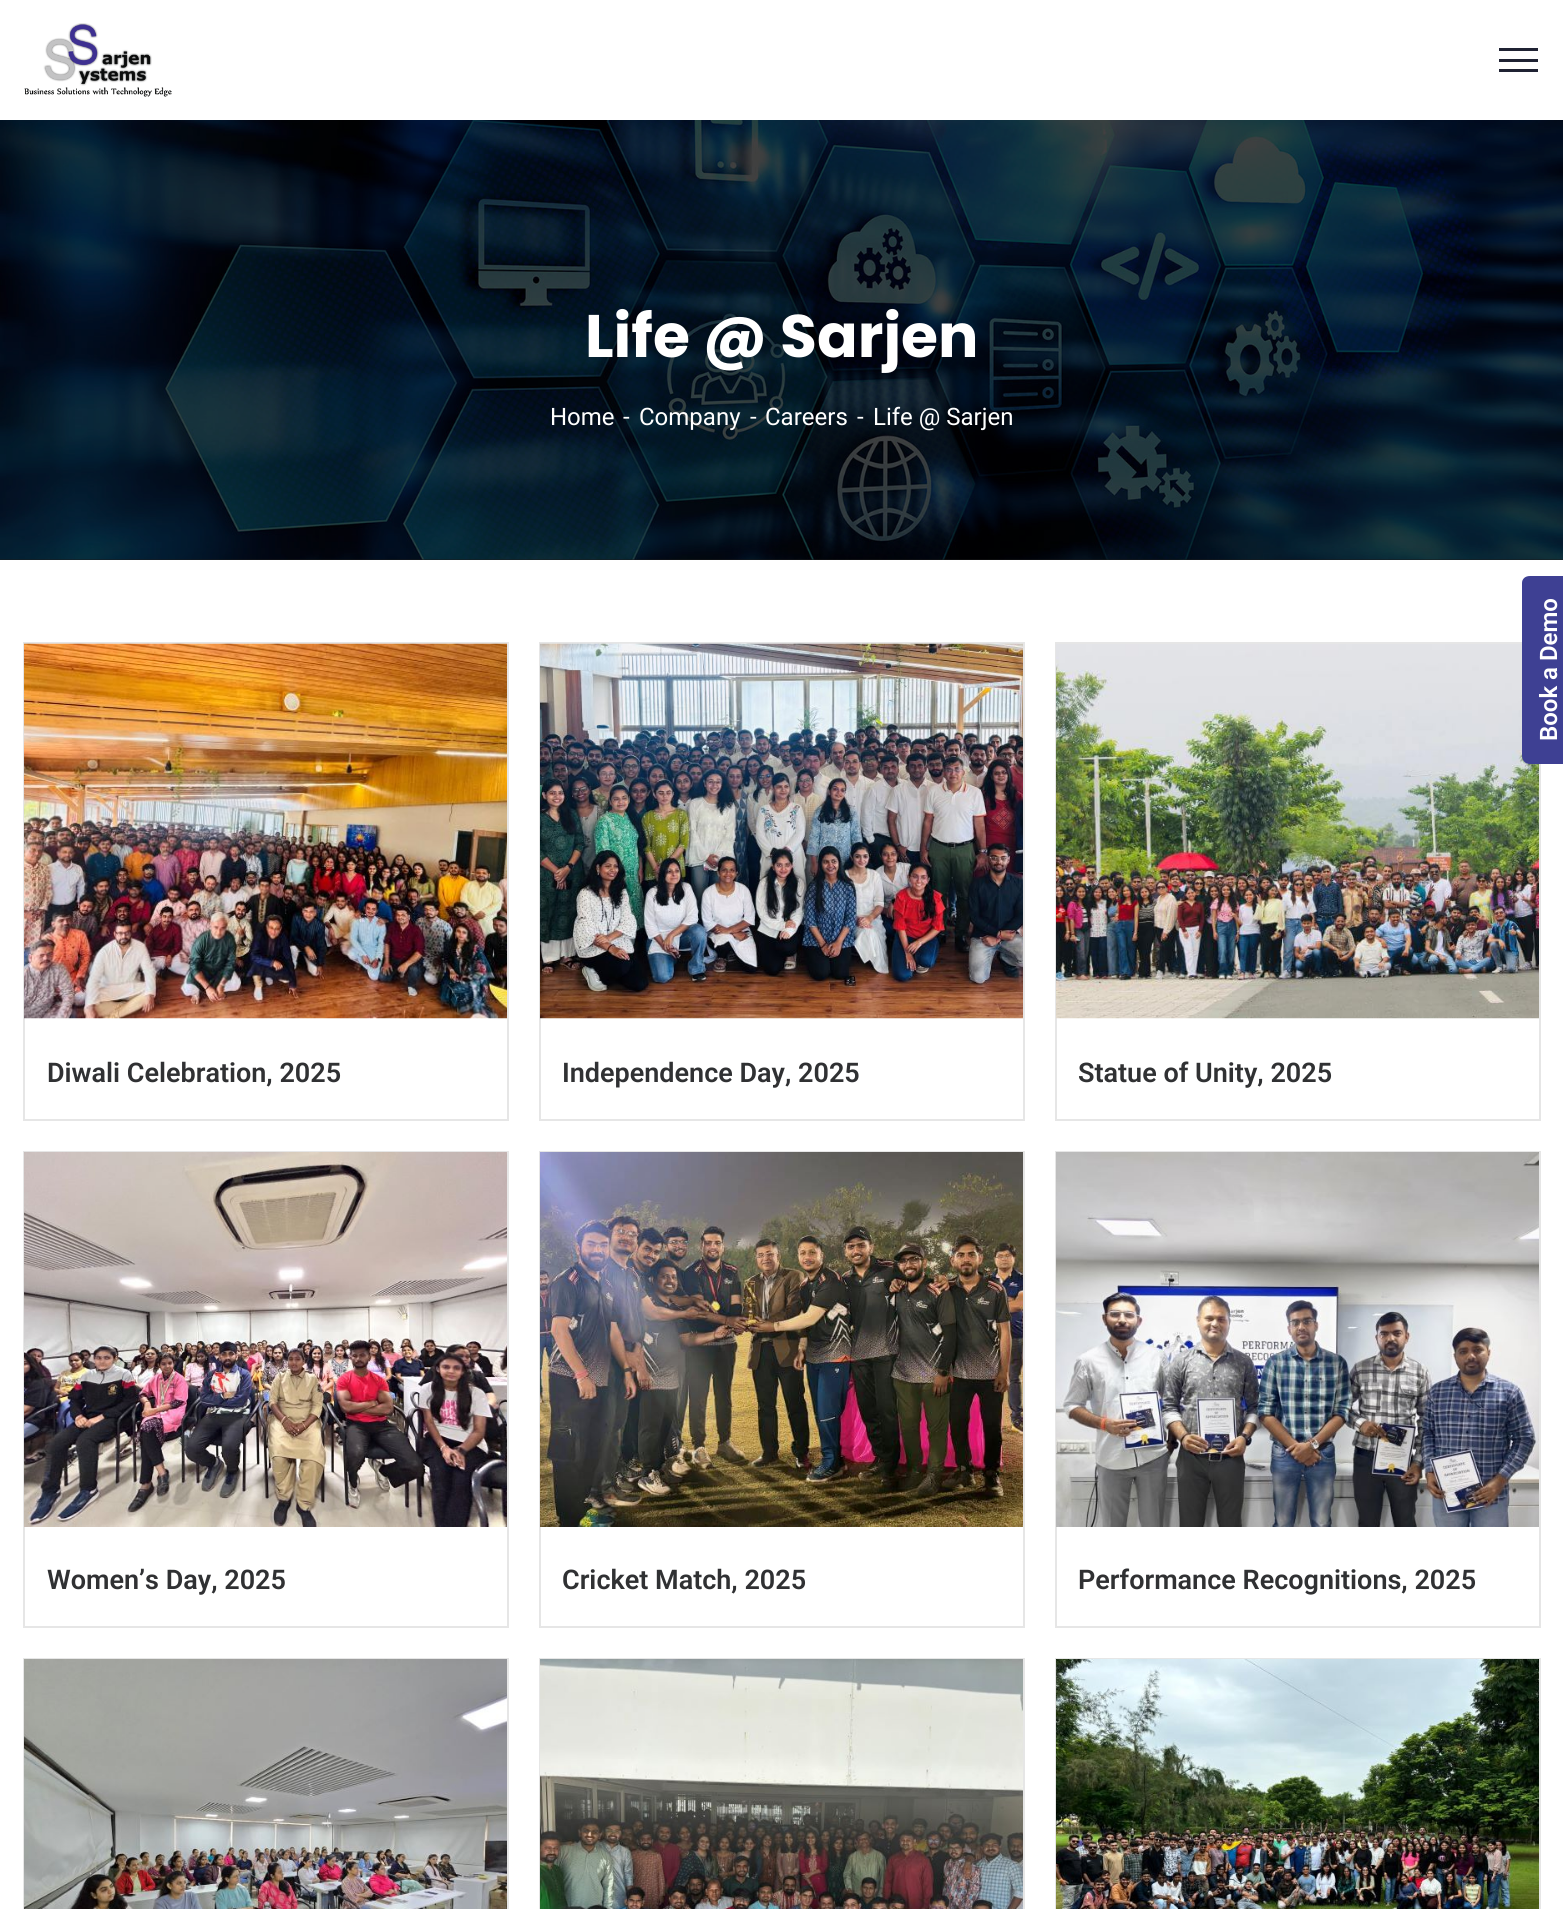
import math
import cairo



def draw_image(context, path, x, y, w, h):
    context.save()
    context.set_source_surface(cairo.ImageSurface.create_from_png(path), x, y)
    context.rectangle(x, y, w, h)
    context.fill()
    context.restore()


def draw(context):
    context.set_source_rgb(1, 1, 1)
    context.paint()
    draw_image(context, "images/1.png", 24, 23, 148, 74)
    context.set_source_rgb(31 / 255, 34 / 255, 51 / 255)
    context.rectangle(1499, 48, 39, 3)
    context.fill()
    context.rectangle(1499, 59, 39, 3)
    context.fill()
    context.rectangle(1499, 69, 39, 3)
    context.fill()
    context.set_source_rgb(26 / 255, 26 / 255, 26 / 255)
    context.rectangle(0, 559, 1563, 1)
    context.fill()
    draw_image(context, "images/2.png", 0, 120, 1563, 440)
    context.rectangle(24, 643, 484, 477)
    context.set_source_rgb(230 / 255, 230 / 255, 230 / 255)
    context.stroke()
    draw_image(context, "images/3.png", 24, 643, 483, 376)
    context.rectangle(540, 643, 484, 477)
    context.stroke()
    draw_image(context, "images/4.png", 540, 643, 483, 376)
    context.rectangle(1056, 643, 484, 477)
    context.stroke()
    draw_image(context, "images/5.png", 1056, 644, 483, 375)
    context.rectangle(24, 1152, 484, 475)
    context.stroke()
    draw_image(context, "images/6.png", 24, 1152, 483, 375)
    context.rectangle(540, 1152, 484, 475)
    context.stroke()
    draw_image(context, "images/7.png", 540, 1152, 483, 375)
    context.rectangle(1056, 1152, 484, 475)
    context.stroke()
    draw_image(context, "images/8.png", 1056, 1152, 483, 375)
    context.rectangle(24, 1659, 484, 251)
    context.stroke()
    draw_image(context, "images/9.png", 24, 1659, 483, 250)
    context.rectangle(540, 1659, 484, 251)
    context.stroke()
    draw_image(context, "images/10.png", 540, 1659, 483, 250)
    context.rectangle(1056, 1659, 484, 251)
    context.stroke()
    draw_image(context, "images/11.png", 1056, 1659, 483, 250)
    context.set_source_rgb(62 / 255, 64 / 255, 147 / 255)
    context.new_path()
    context.move_to(1522, 756)
    context.line_to(1522, 583)
    context.curve_to(1522, 579, 1525, 576, 1530, 576)
    context.line_to(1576, 576)
    context.line_to(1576, 764)
    context.line_to(1530, 764)
    context.curve_to(1525, 764, 1522, 760, 1522, 756)
    context.close_path()
    context.fill()
    context.select_font_face("Poppins", cairo.FontSlant.NORMAL, cairo.FontWeight.BOLD)
    context.set_font_size(60)
    context.set_source_rgb(1, 1, 1)
    context.move_to(585, 357)
    context.show_text("Life @ Sarjen")
    context.select_font_face("Roboto")
    context.set_font_size(24)
    context.move_to(550, 425)
    context.show_text("Home")
    context.move_to(623, 425)
    context.show_text("-")
    context.move_to(639, 425)
    context.show_text("Company")
    context.move_to(750, 425)
    context.show_text("-")
    context.move_to(765, 425)
    context.show_text("Careers")
    context.move_to(857, 425)
    context.show_text("-")
    context.move_to(873, 425)
    context.show_text("Life @ Sarjen")
    context.select_font_face("Roboto SemiBold")
    context.set_font_size(27)
    context.set_source_rgb(48 / 255, 49 / 255, 51 / 255)
    context.move_to(47, 1082)
    context.show_text("Diwali Celebration, 2025")
    context.move_to(562, 1082)
    context.show_text("Independence Day, 2025")
    context.move_to(1078, 1082)
    context.show_text("Statue of Unity, 2025")
    context.move_to(47, 1589)
    context.show_text("Women’s Day, 2025")
    context.move_to(562, 1589)
    context.show_text("Cricket Match, 2025")
    context.move_to(1078, 1589)
    context.show_text("Performance Recognitions, 2025")
    context.set_font_size(24)
    context.set_source_rgb(1, 1, 1)
    context.save()
    context.translate(1557, 741)
    context.rotate(-90 * math.pi / 180)
    context.move_to(0, 0)
    context.show_text("Book a Demo")
    context.restore()


surface = cairo.ImageSurface(cairo.Format.RGB24, 1563, 1909)
context = cairo.Context(surface)
options = cairo.FontOptions()
options.set_hint_metrics(cairo.HintMetrics.OFF)
options.set_hint_style(cairo.HintStyle.NONE)
context.set_font_options(options)
context.set_miter_limit(4)
draw(context)
surface.write_to_png("out.png")
